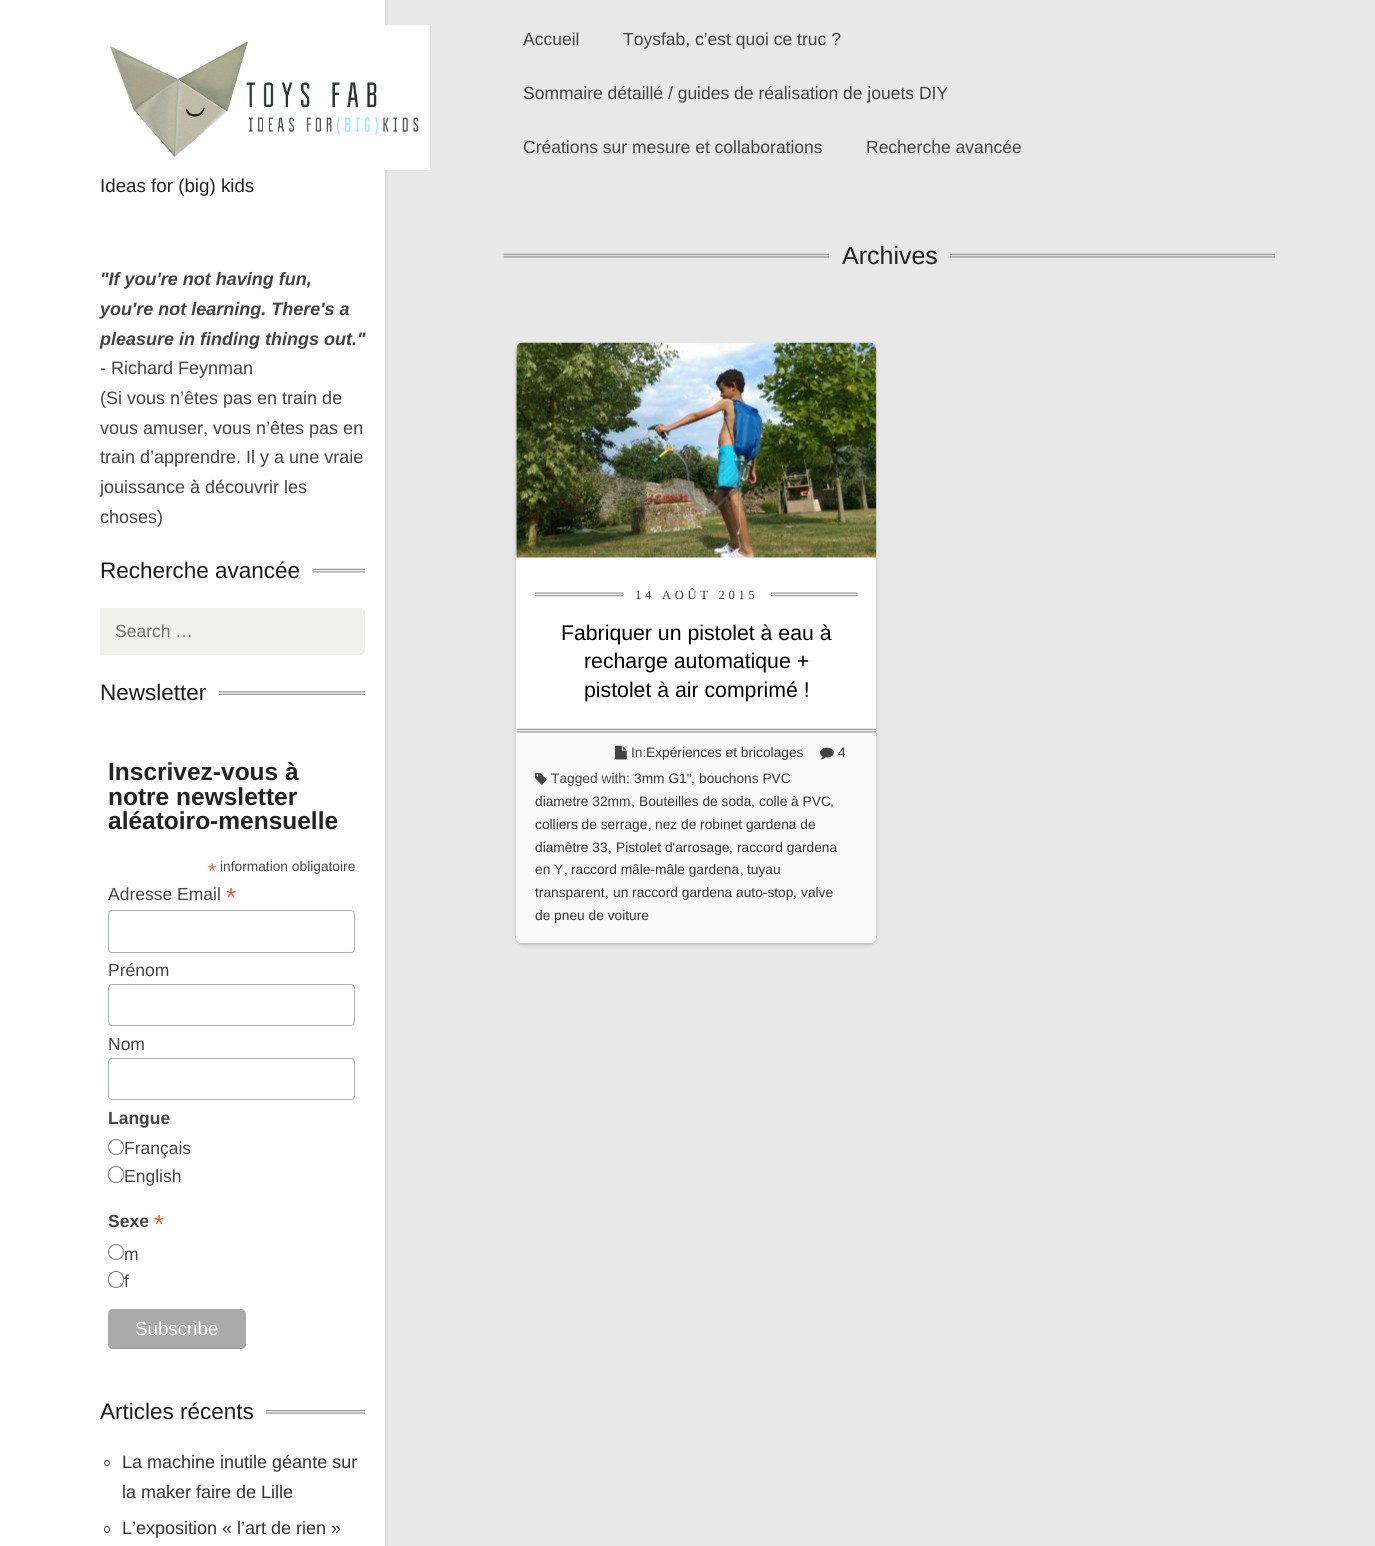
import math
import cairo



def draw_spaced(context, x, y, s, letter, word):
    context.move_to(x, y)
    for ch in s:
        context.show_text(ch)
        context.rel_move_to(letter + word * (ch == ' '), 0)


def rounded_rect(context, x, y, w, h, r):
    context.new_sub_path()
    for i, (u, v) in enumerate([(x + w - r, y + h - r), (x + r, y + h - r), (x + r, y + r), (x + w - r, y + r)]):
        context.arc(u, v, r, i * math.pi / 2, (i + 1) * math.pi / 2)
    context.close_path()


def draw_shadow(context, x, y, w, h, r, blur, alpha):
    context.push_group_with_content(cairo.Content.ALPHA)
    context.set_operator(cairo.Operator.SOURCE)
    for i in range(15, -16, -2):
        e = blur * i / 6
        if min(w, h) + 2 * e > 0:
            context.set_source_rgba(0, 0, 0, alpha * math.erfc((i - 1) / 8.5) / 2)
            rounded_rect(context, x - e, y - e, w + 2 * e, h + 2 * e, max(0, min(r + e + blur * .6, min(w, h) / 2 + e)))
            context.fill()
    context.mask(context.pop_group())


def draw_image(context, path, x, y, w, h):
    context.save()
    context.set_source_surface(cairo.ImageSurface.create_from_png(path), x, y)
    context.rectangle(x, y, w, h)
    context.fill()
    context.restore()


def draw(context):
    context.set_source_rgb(232 / 255, 232 / 255, 232 / 255)
    context.paint()
    draw_image(context, "images/1.png", 0, 0, 388, 1546)
    draw_image(context, "images/2.png", 109, 25, 321, 145)
    draw_image(context, "images/3.png", 313, 568, 52, 5)
    context.set_source_rgb(240 / 255, 240 / 255, 239 / 255)
    context.rectangle(100, 608, 225, 47)
    context.fill()
    context.new_path()
    context.move_to(325, 608)
    context.line_to(361, 608)
    context.curve_to(363, 608, 365, 610, 365, 612)
    context.line_to(365, 651)
    context.curve_to(365, 653, 363, 655, 361, 655)
    context.line_to(325, 655)
    context.close_path()
    context.fill()
    draw_image(context, "images/4.png", 219, 691, 146, 4)
    rounded_rect(context, 108.5, 910.5, 246, 42, 3.5)
    context.set_source_rgb(171 / 255, 176 / 255, 178 / 255)
    context.set_line_width(1)
    context.stroke()
    rounded_rect(context, 108.5, 984.5, 246, 41, 3.5)
    context.stroke()
    rounded_rect(context, 108.5, 1058.5, 246, 41, 3.5)
    context.stroke()
    context.arc(116, 1147, 7.5, 0, 2 * math.pi)
    context.set_source_rgb(118 / 255, 118 / 255, 118 / 255)
    context.stroke()
    rounded_rect(context, 108.5, 1166.5, 15, 16, 7.5)
    context.stroke()
    context.arc(116, 1252, 7.5, 0, 2 * math.pi)
    context.stroke()
    rounded_rect(context, 108.5, 1271.5, 15, 16, 7.5)
    context.stroke()
    context.set_source_rgb(170 / 255, 170 / 255, 170 / 255)
    rounded_rect(context, 108, 1309, 138, 40, 5)
    context.fill()
    context.set_source_rgba(0, 0, 0, 0.1)
    context.new_path()
    context.move_to(108, 1342)
    context.line_to(108, 1344)
    context.curve_to(108, 1347, 110, 1349, 113, 1349)
    context.line_to(241, 1349)
    context.curve_to(244, 1349, 246, 1347, 246, 1344)
    context.line_to(246, 1342)
    context.curve_to(246, 1345, 244, 1348, 241, 1348)
    context.line_to(112, 1348)
    context.curve_to(110, 1348, 108, 1345, 108, 1342)
    context.close_path()
    context.fill()
    draw_image(context, "images/5.png", 266, 1410, 99, 4)
    context.arc(107, 1463, 2.5, 0, 2 * math.pi)
    context.set_source_rgb(68 / 255, 68 / 255, 68 / 255)
    context.stroke()
    rounded_rect(context, 104.5, 1526.5, 5, 6, 2.5)
    context.stroke()
    draw_image(context, "images/6.png", 503, 253, 772, 5)
    context.set_source_rgb(232 / 255, 232 / 255, 232 / 255)
    context.rectangle(829, 253, 121, 5)
    context.fill()
    context.set_source_rgb(0, 0, 0)
    draw_shadow(context, 516, 345, 360, 600, 6, 2, 0.2)
    context.set_source_rgb(1, 1, 1)
    rounded_rect(context, 516, 343, 360, 600, 6)
    context.fill()
    draw_image(context, "images/7.png", 516, 342, 361, 216)
    draw_image(context, "images/8.png", 535, 592, 323, 5)
    context.rectangle(623, 592, 148, 5)
    context.fill()
    context.set_source_rgb(250 / 255, 250 / 255, 250 / 255)
    context.new_path()
    context.move_to(516, 729)
    context.line_to(876, 729)
    context.line_to(876, 937)
    context.curve_to(876, 940.5, 873.5, 943, 870, 943)
    context.line_to(522, 943)
    context.curve_to(518.5, 943, 516, 940.5, 516, 937)
    context.close_path()
    context.fill()
    draw_image(context, "images/9.png", 516, 728, 360, 5)
    draw_image(context, "images/10.png", 615, 745, 12, 15)
    draw_image(context, "images/11.png", 820, 747, 14, 13)
    draw_image(context, "images/12.png", 535, 772, 12, 13)
    context.select_font_face("Liberation Sans")
    context.set_font_size(17.5)
    context.set_source_rgb(68 / 255, 68 / 255, 68 / 255)
    context.move_to(523, 45)
    context.show_text("Accueil")
    context.move_to(623, 45)
    context.show_text("Toysfab, c’est quoi ce truc ?")
    context.move_to(523, 99)
    context.show_text("Sommaire détaillé / guides de réalisation de jouets DIY")
    context.move_to(523, 153)
    context.show_text("Créations sur mesure et collaborations")
    context.move_to(866, 153)
    context.show_text("Recherche avancée")
    context.set_font_size(18.75)
    context.set_source_rgb(34 / 255, 34 / 255, 34 / 255)
    context.move_to(100, 192)
    context.show_text("Ideas for (big) kids")
    context.select_font_face("Liberation Sans", cairo.FontSlant.ITALIC, cairo.FontWeight.BOLD)
    context.set_font_size(18)
    context.set_source_rgb(68 / 255, 68 / 255, 68 / 255)
    context.move_to(100, 285)
    context.show_text("\"If you're not having fun,")
    context.move_to(100, 315)
    context.show_text("you're not learning. There's a")
    context.move_to(100, 345)
    context.show_text("pleasure in finding things out.\"")
    context.select_font_face("Liberation Sans")
    context.move_to(100, 374)
    context.show_text("- Richard Feynman")
    context.move_to(100, 404)
    context.show_text("(Si vous n’êtes pas en train de")
    context.move_to(100, 434)
    context.show_text("vous amuser, vous n’êtes pas en")
    context.move_to(100, 463)
    context.show_text("train d’apprendre. Il y a une vraie")
    context.move_to(100, 493)
    context.show_text("jouissance à découvrir les")
    context.move_to(100, 523)
    context.show_text("choses)")
    context.set_font_size(22.5)
    context.set_source_rgb(26 / 255, 26 / 255, 26 / 255)
    context.move_to(100, 578)
    context.show_text("Recherche avancée")
    context.set_font_size(17.5)
    context.set_source_rgb(117 / 255, 117 / 255, 117 / 255)
    context.move_to(115, 637)
    context.show_text("Search …")
    context.set_font_size(22.5)
    context.set_source_rgb(26 / 255, 26 / 255, 26 / 255)
    context.move_to(100, 700)
    context.show_text("Newsletter")
    context.select_font_face("Liberation Sans", cairo.FontSlant.NORMAL, cairo.FontWeight.BOLD)
    context.set_font_size(24.5)
    context.set_source_rgb(34 / 255, 34 / 255, 34 / 255)
    context.move_to(108, 780)
    context.show_text("Inscrivez-vous à")
    context.move_to(108, 805)
    context.show_text("notre newsletter")
    context.move_to(108, 829)
    context.show_text("aléatoiro-mensuelle")
    context.select_font_face("Liberation Sans")
    context.set_font_size(21)
    context.set_source_rgb(232 / 255, 92 / 255, 65 / 255)
    context.move_to(208, 878)
    context.show_text("*")
    context.set_font_size(13.75)
    context.set_source_rgb(68 / 255, 68 / 255, 68 / 255)
    context.move_to(220, 871)
    context.show_text("information obligatoire")
    context.set_font_size(17.5)
    context.move_to(108, 900)
    context.show_text("Adresse Email")
    context.set_font_size(26)
    context.set_source_rgb(232 / 255, 92 / 255, 65 / 255)
    context.move_to(226, 906)
    context.show_text("*")
    context.set_font_size(17.5)
    context.set_source_rgb(68 / 255, 68 / 255, 68 / 255)
    context.move_to(108, 976)
    context.show_text("Prénom")
    context.move_to(108, 1050)
    context.show_text("Nom")
    context.select_font_face("Liberation Sans", cairo.FontSlant.NORMAL, cairo.FontWeight.BOLD)
    context.move_to(108, 1124)
    context.show_text("Langue")
    context.select_font_face("Liberation Sans")
    context.move_to(124, 1154)
    context.show_text("Français")
    context.move_to(124, 1182)
    context.show_text("English")
    context.select_font_face("Liberation Sans", cairo.FontSlant.NORMAL, cairo.FontWeight.BOLD)
    context.move_to(108, 1227)
    context.show_text("Sexe")
    context.select_font_face("Liberation Sans")
    context.set_font_size(26)
    context.set_source_rgb(232 / 255, 92 / 255, 65 / 255)
    context.move_to(154, 1233)
    context.show_text("*")
    context.set_font_size(17.5)
    context.set_source_rgb(68 / 255, 68 / 255, 68 / 255)
    context.move_to(124, 1260)
    context.show_text("m")
    context.move_to(124, 1287)
    context.show_text("f")
    context.set_font_size(18.75)
    context.set_source_rgb(1, 1, 1)
    context.move_to(135, 1335)
    context.show_text("Subscribe")
    context.set_font_size(22.5)
    context.set_source_rgb(26 / 255, 26 / 255, 26 / 255)
    context.move_to(100, 1419)
    context.show_text("Articles récents")
    context.set_font_size(18)
    context.set_source_rgb(51 / 255, 51 / 255, 51 / 255)
    context.move_to(122, 1468)
    context.show_text("La machine inutile géante sur")
    context.move_to(122, 1498)
    context.show_text("la maker faire de Lille")
    context.move_to(122, 1534)
    context.show_text("L’exposition « l’art de rien »")
    context.set_font_size(25)
    context.set_source_rgb(34 / 255, 34 / 255, 34 / 255)
    context.move_to(842, 264)
    context.show_text("Archives")
    context.select_font_face("Liberation Serif")
    context.set_font_size(12.5)
    context.set_source_rgb(51 / 255, 51 / 255, 51 / 255)
    draw_spaced(context, 635, 599, "14 AOÛT 2015", 3.75, 0)
    context.select_font_face("Liberation Sans")
    context.set_font_size(21.25)
    context.set_source_rgb(0, 0, 0)
    context.move_to(561, 640)
    context.show_text("Fabriquer un pistolet à eau à")
    context.move_to(584, 668)
    context.show_text("recharge automatique +")
    context.move_to(584, 697)
    context.show_text("pistolet à air comprimé !")
    context.set_font_size(13.75)
    context.set_source_rgb(68 / 255, 68 / 255, 68 / 255)
    context.move_to(631, 757)
    context.show_text("In:")
    context.set_source_rgb(51 / 255, 51 / 255, 51 / 255)
    context.move_to(646, 757)
    context.show_text("Expériences et bricolages")
    context.move_to(838, 757)
    context.show_text("4")
    context.set_source_rgb(68 / 255, 68 / 255, 68 / 255)
    context.move_to(551, 783)
    context.show_text("Tagged with:")
    context.set_source_rgb(51 / 255, 51 / 255, 51 / 255)
    context.move_to(634, 783)
    context.show_text("3mm G1\"")
    context.set_source_rgb(68 / 255, 68 / 255, 68 / 255)
    context.move_to(691, 783)
    context.show_text(",")
    context.set_source_rgb(51 / 255, 51 / 255, 51 / 255)
    context.move_to(699, 783)
    context.show_text("bouchons PVC")
    context.move_to(535, 806)
    context.show_text("diametre 32mm")
    context.set_source_rgb(68 / 255, 68 / 255, 68 / 255)
    context.move_to(631, 806)
    context.show_text(",")
    context.set_source_rgb(51 / 255, 51 / 255, 51 / 255)
    context.move_to(639, 806)
    context.show_text("Bouteilles de soda")
    context.set_source_rgb(68 / 255, 68 / 255, 68 / 255)
    context.move_to(751, 806)
    context.show_text(",")
    context.set_source_rgb(51 / 255, 51 / 255, 51 / 255)
    context.move_to(759, 806)
    context.show_text("colle à PVC")
    context.set_source_rgb(68 / 255, 68 / 255, 68 / 255)
    context.move_to(830, 806)
    context.show_text(",")
    context.set_source_rgb(51 / 255, 51 / 255, 51 / 255)
    context.move_to(535, 829)
    context.show_text("colliers de serrage")
    context.set_source_rgb(68 / 255, 68 / 255, 68 / 255)
    context.move_to(648, 829)
    context.show_text(",")
    context.set_source_rgb(51 / 255, 51 / 255, 51 / 255)
    context.move_to(655, 829)
    context.show_text("nez de robinet gardena de")
    context.move_to(535, 852)
    context.show_text("diamètre 33")
    context.set_source_rgb(68 / 255, 68 / 255, 68 / 255)
    context.move_to(608, 852)
    context.show_text(",")
    context.set_source_rgb(51 / 255, 51 / 255, 51 / 255)
    context.move_to(616, 852)
    context.show_text("Pistolet d'arrosage")
    context.set_source_rgb(68 / 255, 68 / 255, 68 / 255)
    context.move_to(729, 852)
    context.show_text(",")
    context.set_source_rgb(51 / 255, 51 / 255, 51 / 255)
    context.move_to(737, 852)
    context.show_text("raccord gardena")
    context.move_to(535, 874)
    context.show_text("en Y")
    context.set_source_rgb(68 / 255, 68 / 255, 68 / 255)
    context.move_to(564, 874)
    context.show_text(",")
    context.set_source_rgb(51 / 255, 51 / 255, 51 / 255)
    context.move_to(571, 874)
    context.show_text("raccord mâle-mâle gardena")
    context.set_source_rgb(68 / 255, 68 / 255, 68 / 255)
    context.move_to(740, 874)
    context.show_text(",")
    context.set_source_rgb(51 / 255, 51 / 255, 51 / 255)
    context.move_to(747, 874)
    context.show_text("tuyau")
    context.move_to(535, 897)
    context.show_text("transparent")
    context.set_source_rgb(68 / 255, 68 / 255, 68 / 255)
    context.move_to(605, 897)
    context.show_text(",")
    context.set_source_rgb(51 / 255, 51 / 255, 51 / 255)
    context.move_to(613, 897)
    context.show_text("un raccord gardena auto-stop")
    context.set_source_rgb(68 / 255, 68 / 255, 68 / 255)
    context.move_to(793, 897)
    context.show_text(",")
    context.set_source_rgb(51 / 255, 51 / 255, 51 / 255)
    context.move_to(801, 897)
    context.show_text("valve")
    context.move_to(535, 920)
    context.show_text("de pneu de voiture")


surface = cairo.ImageSurface(cairo.Format.RGB24, 1375, 1546)
context = cairo.Context(surface)
options = cairo.FontOptions()
options.set_hint_metrics(cairo.HintMetrics.OFF)
options.set_hint_style(cairo.HintStyle.NONE)
context.set_font_options(options)
context.set_miter_limit(4)
draw(context)
surface.write_to_png("out.png")
